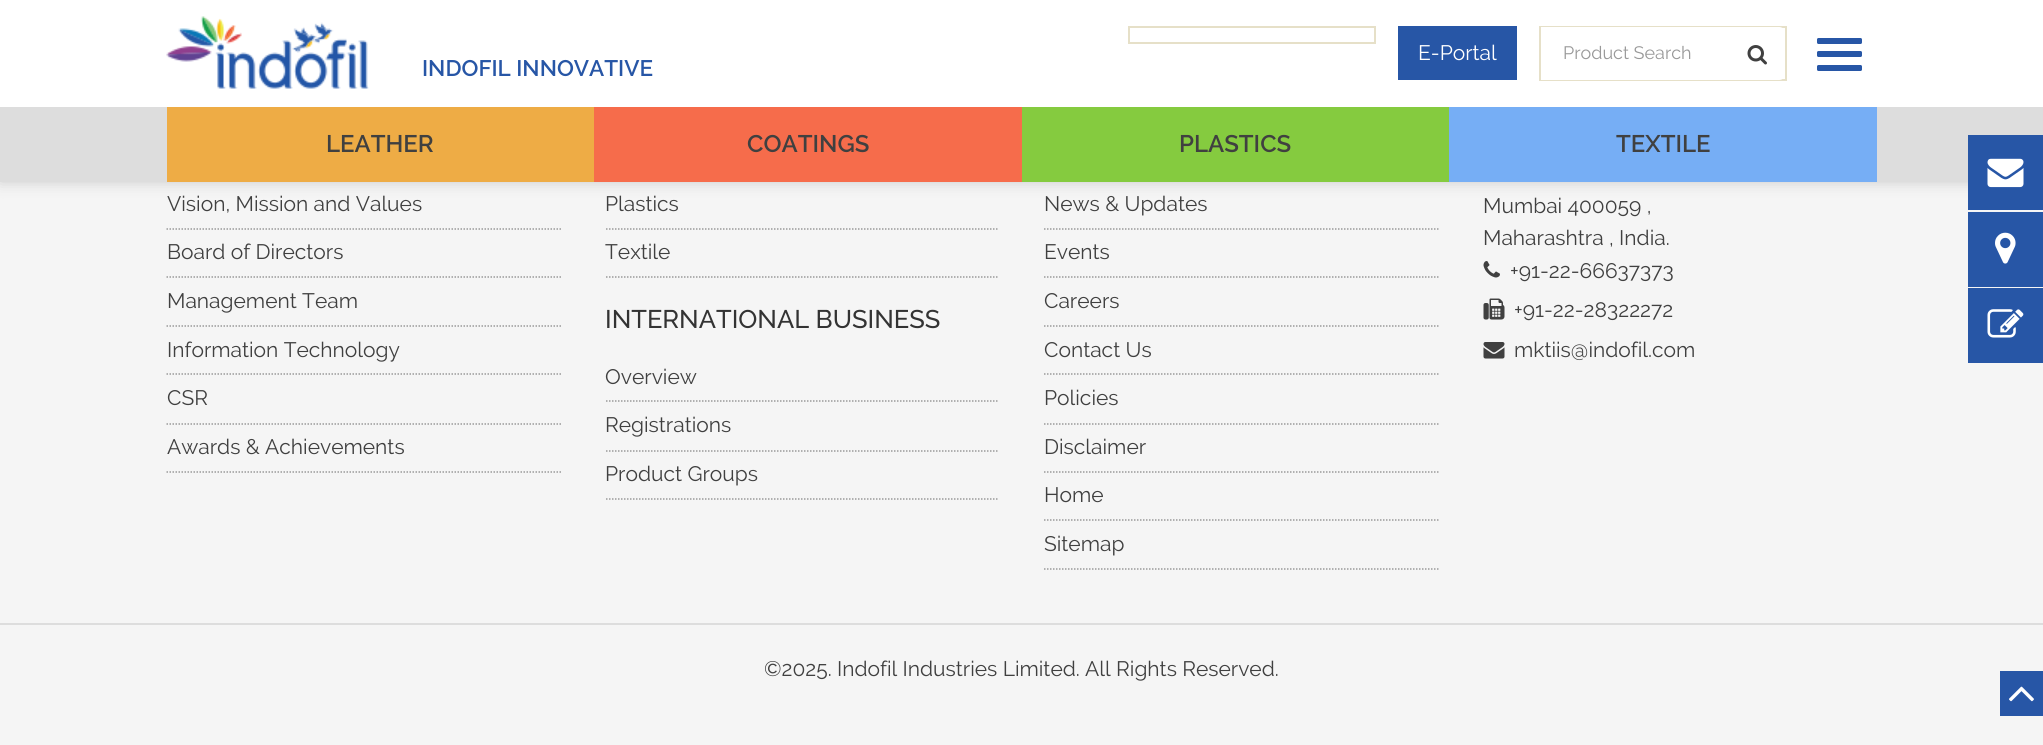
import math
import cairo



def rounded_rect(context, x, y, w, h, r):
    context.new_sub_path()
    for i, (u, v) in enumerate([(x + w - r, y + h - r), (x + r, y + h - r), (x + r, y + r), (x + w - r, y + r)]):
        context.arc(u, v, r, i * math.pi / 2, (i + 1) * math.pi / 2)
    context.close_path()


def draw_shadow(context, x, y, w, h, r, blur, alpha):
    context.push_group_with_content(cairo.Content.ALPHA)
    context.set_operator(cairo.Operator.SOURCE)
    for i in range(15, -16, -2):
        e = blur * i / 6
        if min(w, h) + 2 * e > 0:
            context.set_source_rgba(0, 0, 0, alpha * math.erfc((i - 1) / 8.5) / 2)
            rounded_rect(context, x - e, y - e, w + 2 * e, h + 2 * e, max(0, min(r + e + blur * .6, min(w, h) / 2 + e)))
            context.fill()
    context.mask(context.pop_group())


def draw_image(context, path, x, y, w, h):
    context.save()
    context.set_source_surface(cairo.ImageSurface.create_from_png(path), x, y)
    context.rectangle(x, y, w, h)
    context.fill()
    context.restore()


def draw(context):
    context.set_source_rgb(245 / 255, 245 / 255, 245 / 255)
    context.paint()
    context.set_source_rgb(204 / 255, 204 / 255, 204 / 255)
    draw_shadow(context, 0, 0, 2043, 182, 0, 7.5, 1)
    context.set_source_rgb(1, 1, 1)
    context.rectangle(0, 0, 2043, 107)
    context.fill()
    context.rectangle(1129, 27, 246, 16)
    context.set_source_rgb(230 / 255, 224 / 255, 200 / 255)
    context.stroke()
    context.set_source_rgb(39 / 255, 86 / 255, 166 / 255)
    context.rectangle(1398, 26, 119, 54)
    context.fill()
    context.rectangle(1540, 27, 246, 53)
    context.set_source_rgb(230 / 255, 224 / 255, 200 / 255)
    context.stroke()
    context.set_source_rgb(1, 1, 1)
    context.rectangle(1541, 27, 189, 53)
    context.fill()
    context.new_path()
    context.move_to(1730, 27)
    context.line_to(1779, 27)
    context.curve_to(1782.5, 27, 1785, 29.5, 1785, 33)
    context.line_to(1785, 74)
    context.curve_to(1785, 77.5, 1782.5, 80, 1779, 80)
    context.line_to(1730, 80)
    context.close_path()
    context.fill()
    draw_image(context, "images/1.png", 1747, 45, 20, 20)
    context.set_source_rgb(39 / 255, 86 / 255, 166 / 255)
    rounded_rect(context, 1817, 38, 45, 6, 1.5)
    context.fill()
    rounded_rect(context, 1817, 51, 45, 6, 1.5)
    context.fill()
    rounded_rect(context, 1817, 65, 45, 6, 1.5)
    context.fill()
    draw_image(context, "images/2.png", 166, 16, 203, 73)
    context.set_source_rgb(221 / 255, 221 / 255, 221 / 255)
    context.rectangle(0, 107, 2043, 75)
    context.fill()
    context.set_source_rgb(238 / 255, 172 / 255, 69 / 255)
    context.rectangle(167, 107, 427, 75)
    context.fill()
    context.set_source_rgb(246 / 255, 108 / 255, 75 / 255)
    context.rectangle(594, 107, 428, 75)
    context.fill()
    context.set_source_rgb(133 / 255, 203 / 255, 63 / 255)
    context.rectangle(1022, 107, 427, 75)
    context.fill()
    context.set_source_rgb(118 / 255, 174 / 255, 245 / 255)
    context.rectangle(1449, 107, 428, 75)
    context.fill()
    context.set_source_rgb(39 / 255, 86 / 255, 166 / 255)
    context.rectangle(1968, 135, 75, 75)
    context.fill()
    draw_image(context, "images/3.png", 1987, 158, 37, 30)
    context.rectangle(1968, 212, 75, 75)
    context.fill()
    draw_image(context, "images/4.png", 1995, 232, 21, 32)
    context.rectangle(1968, 288, 75, 75)
    context.fill()
    draw_image(context, "images/5.png", 1987, 309, 37, 29)
    context.new_path()
    context.move_to(166.5, 229)
    context.line_to(561, 229)
    context.set_source_rgb(153 / 255, 153 / 255, 153 / 255)
    context.set_line_width(1.5)
    context.set_dash([1.5, 1.5])
    context.stroke()
    context.new_path()
    context.move_to(166.5, 277)
    context.line_to(561, 277)
    context.stroke()
    context.new_path()
    context.move_to(166.5, 326)
    context.line_to(561, 326)
    context.stroke()
    context.new_path()
    context.move_to(166.5, 374)
    context.line_to(561, 374)
    context.stroke()
    context.new_path()
    context.move_to(166.5, 424)
    context.line_to(561, 424)
    context.stroke()
    context.new_path()
    context.move_to(166.5, 472)
    context.line_to(561, 472)
    context.stroke()
    context.new_path()
    context.move_to(606, 229)
    context.line_to(999, 229)
    context.stroke()
    context.new_path()
    context.move_to(606, 277)
    context.line_to(999, 277)
    context.stroke()
    context.new_path()
    context.move_to(606, 401)
    context.line_to(999, 401)
    context.stroke()
    context.new_path()
    context.move_to(606, 451)
    context.line_to(999, 451)
    context.stroke()
    context.new_path()
    context.move_to(606, 499)
    context.line_to(999, 499)
    context.stroke()
    context.new_path()
    context.move_to(1044, 229)
    context.line_to(1438.5, 229)
    context.stroke()
    context.new_path()
    context.move_to(1044, 277)
    context.line_to(1438.5, 277)
    context.stroke()
    context.new_path()
    context.move_to(1044, 326)
    context.line_to(1438.5, 326)
    context.stroke()
    context.new_path()
    context.move_to(1044, 374)
    context.line_to(1438.5, 374)
    context.stroke()
    context.new_path()
    context.move_to(1044, 424)
    context.line_to(1438.5, 424)
    context.stroke()
    context.new_path()
    context.move_to(1044, 472)
    context.line_to(1438.5, 472)
    context.stroke()
    context.new_path()
    context.move_to(1044, 520)
    context.line_to(1438.5, 520)
    context.stroke()
    context.new_path()
    context.move_to(1044, 569)
    context.line_to(1438.5, 569)
    context.stroke()
    draw_image(context, "images/6.png", 1483, 261, 17, 17)
    draw_image(context, "images/7.png", 1483, 298, 22, 22)
    draw_image(context, "images/8.png", 1483, 342, 22, 17)
    context.set_source_rgb(221 / 255, 221 / 255, 221 / 255)
    context.rectangle(0, 623, 2043, 2)
    context.fill()
    context.set_source_rgb(39 / 255, 86 / 255, 166 / 255)
    context.rectangle(2000, 671, 43, 45)
    context.fill()
    draw_image(context, "images/9.png", 2009, 686, 25, 16)
    context.select_font_face("Raleway")
    context.set_font_size(21)
    context.set_source_rgb(1, 1, 1)
    context.move_to(1418, 60)
    context.show_text("E-Portal")
    context.set_font_size(18)
    context.set_source_rgb(153 / 255, 153 / 255, 153 / 255)
    context.move_to(1563, 59)
    context.show_text("Product Search")
    context.select_font_face("Raleway SemiBold")
    context.set_font_size(22.5)
    context.set_source_rgb(39 / 255, 86 / 255, 166 / 255)
    context.move_to(422, 76)
    context.show_text("INDOFIL INNOVATIVE")
    context.set_font_size(24)
    context.set_source_rgb(64 / 255, 64 / 255, 64 / 255)
    context.move_to(326, 152)
    context.show_text("LEATHER")
    context.move_to(747, 152)
    context.show_text("COATINGS")
    context.move_to(1179, 152)
    context.show_text("PLASTICS")
    context.move_to(1616, 152)
    context.show_text("TEXTILE")
    context.select_font_face("Raleway")
    context.set_font_size(21)
    context.move_to(167, 211)
    context.show_text("Vision, Mission and Values")
    context.move_to(167, 259)
    context.show_text("Board of Directors")
    context.move_to(167, 308)
    context.show_text("Management Team")
    context.move_to(167, 357)
    context.show_text("Information Technology")
    context.move_to(167, 405)
    context.show_text("CSR")
    context.move_to(167, 454)
    context.show_text("Awards & Achievements")
    context.move_to(605, 211)
    context.show_text("Plastics")
    context.move_to(605, 259)
    context.show_text("Textile")
    context.select_font_face("Raleway Medium")
    context.set_font_size(25.5)
    context.set_source_rgb(51 / 255, 51 / 255, 51 / 255)
    context.move_to(605, 328)
    context.show_text("INTERNATIONAL BUSINESS")
    context.select_font_face("Raleway")
    context.set_font_size(21)
    context.set_source_rgb(64 / 255, 64 / 255, 64 / 255)
    context.move_to(605, 384)
    context.show_text("Overview")
    context.move_to(605, 432)
    context.show_text("Registrations")
    context.move_to(605, 481)
    context.show_text("Product Groups")
    context.move_to(1044, 211)
    context.show_text("News & Updates")
    context.move_to(1044, 259)
    context.show_text("Events")
    context.move_to(1044, 308)
    context.show_text("Careers")
    context.move_to(1044, 357)
    context.show_text("Contact Us")
    context.move_to(1044, 405)
    context.show_text("Policies")
    context.move_to(1044, 454)
    context.show_text("Disclaimer")
    context.move_to(1044, 502)
    context.show_text("Home")
    context.move_to(1044, 551)
    context.show_text("Sitemap")
    context.move_to(1483, 213)
    context.show_text("Mumbai 400059 ,")
    context.move_to(1483, 245)
    context.show_text("Maharashtra , India.")
    context.move_to(1510, 278)
    context.show_text("+91-22-66637373")
    context.move_to(1514, 317)
    context.show_text("+91-22-28322272")
    context.move_to(1514, 357)
    context.show_text("mktiis@indofil.com")
    context.move_to(764, 676)
    context.show_text("©2025. Indofil Industries Limited. All Rights Reserved.")


surface = cairo.ImageSurface(cairo.Format.RGB24, 2043, 745)
context = cairo.Context(surface)
options = cairo.FontOptions()
options.set_hint_metrics(cairo.HintMetrics.OFF)
options.set_hint_style(cairo.HintStyle.NONE)
context.set_font_options(options)
context.set_miter_limit(4)
draw(context)
surface.write_to_png("out.png")
